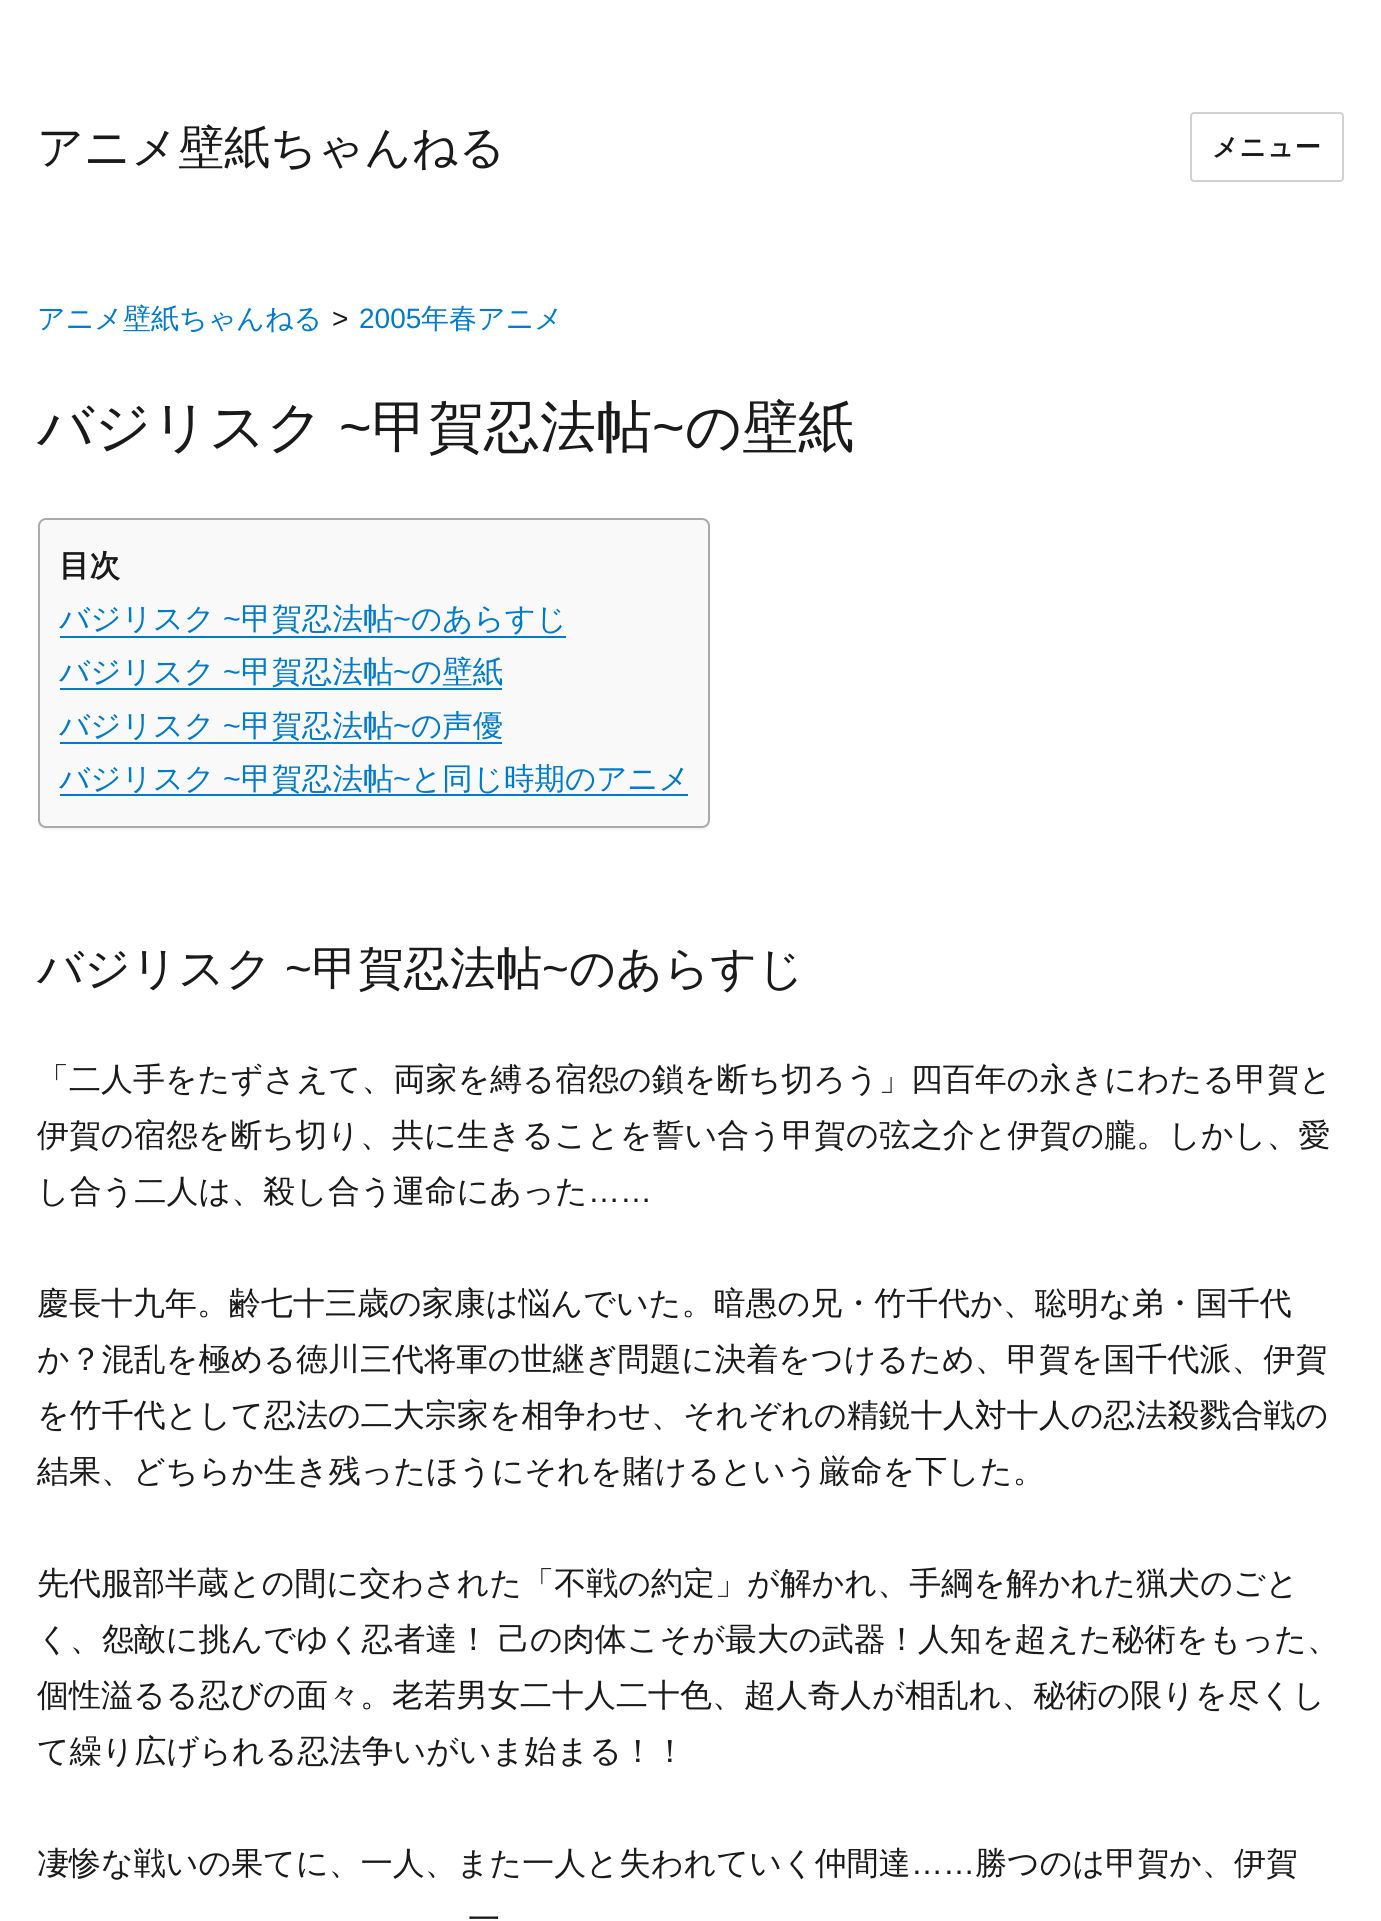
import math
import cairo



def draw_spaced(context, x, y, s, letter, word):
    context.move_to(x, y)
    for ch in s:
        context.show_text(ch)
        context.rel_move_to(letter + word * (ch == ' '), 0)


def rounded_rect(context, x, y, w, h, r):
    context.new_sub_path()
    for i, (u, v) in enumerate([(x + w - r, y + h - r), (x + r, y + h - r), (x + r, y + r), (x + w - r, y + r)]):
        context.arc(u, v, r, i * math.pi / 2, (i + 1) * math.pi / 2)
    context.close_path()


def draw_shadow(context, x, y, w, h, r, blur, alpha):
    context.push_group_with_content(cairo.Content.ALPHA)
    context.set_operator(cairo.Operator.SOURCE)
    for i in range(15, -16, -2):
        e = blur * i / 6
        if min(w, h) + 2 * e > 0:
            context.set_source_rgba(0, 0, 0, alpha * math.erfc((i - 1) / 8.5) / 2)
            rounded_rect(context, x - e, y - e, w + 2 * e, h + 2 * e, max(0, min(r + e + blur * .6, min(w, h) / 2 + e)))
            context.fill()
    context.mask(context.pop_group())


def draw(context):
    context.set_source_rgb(1, 1, 1)
    context.paint()
    rounded_rect(context, 1191, 113, 152, 68, 3)
    context.set_source_rgb(209 / 255, 209 / 255, 209 / 255)
    context.stroke()
    context.set_source_rgb(0, 0, 0)
    draw_shadow(context, 38, 520, 672, 310, 8, 1, 0.05)
    context.set_source_rgb(249 / 255, 249 / 255, 249 / 255)
    rounded_rect(context, 39, 519, 670, 308, 7)
    context.fill_preserve()
    context.set_source_rgb(170 / 255, 170 / 255, 170 / 255)
    context.stroke()
    context.set_source_rgb(0, 122 / 255, 204 / 255)
    context.rectangle(60, 636, 506, 2)
    context.fill()
    context.rectangle(60, 688, 442, 2)
    context.fill()
    context.rectangle(60, 742, 442, 2)
    context.fill()
    context.rectangle(60, 794, 628, 2)
    context.fill()
    context.select_font_face("WenQuanYi Zen Hei Medium")
    context.set_font_size(46)
    context.set_source_rgb(26 / 255, 26 / 255, 26 / 255)
    context.move_to(37, 163)
    context.show_text("アニメ壁紙ちゃんねる")
    context.select_font_face("WenQuanYi Zen Hei", cairo.FontSlant.NORMAL, cairo.FontWeight.BOLD)
    context.set_font_size(26)
    draw_spaced(context, 1212, 156, "メニュー", 1, 0)
    context.select_font_face("WenQuanYi Zen Hei Medium")
    context.set_font_size(28)
    context.set_source_rgb(0, 122 / 255, 204 / 255)
    context.move_to(37, 328)
    context.show_text("アニメ壁紙ちゃんねる")
    context.select_font_face("Liberation Sans")
    context.set_source_rgb(26 / 255, 26 / 255, 26 / 255)
    context.move_to(332, 328)
    context.show_text(">")
    context.set_source_rgb(0, 122 / 255, 204 / 255)
    context.move_to(359, 328)
    context.show_text("2005")
    context.select_font_face("WenQuanYi Zen Hei Medium")
    context.move_to(421, 328)
    context.show_text("年春アニメ")
    context.set_font_size(56)
    context.set_source_rgb(26 / 255, 26 / 255, 26 / 255)
    context.move_to(37, 446)
    context.show_text("バジリスク")
    context.select_font_face("Liberation Sans")
    context.move_to(339, 446)
    context.show_text("~")
    context.select_font_face("WenQuanYi Zen Hei Medium")
    context.move_to(372, 446)
    context.show_text("甲賀忍法帖")
    context.select_font_face("Liberation Sans")
    context.move_to(652, 446)
    context.show_text("~")
    context.select_font_face("WenQuanYi Zen Hei Medium")
    context.move_to(685, 446)
    context.show_text("の壁紙")
    context.select_font_face("WenQuanYi Zen Hei", cairo.FontSlant.NORMAL, cairo.FontWeight.BOLD)
    context.set_font_size(30.5)
    context.move_to(59, 576)
    context.show_text("目次")
    context.select_font_face("WenQuanYi Zen Hei Medium")
    context.set_source_rgb(0, 122 / 255, 204 / 255)
    context.move_to(59, 629)
    context.show_text("バジリスク")
    context.select_font_face("Liberation Sans")
    context.move_to(223, 629)
    context.show_text("~")
    context.select_font_face("WenQuanYi Zen Hei Medium")
    context.move_to(241, 629)
    context.show_text("甲賀忍法帖")
    context.select_font_face("Liberation Sans")
    context.move_to(393, 629)
    context.show_text("~")
    context.select_font_face("WenQuanYi Zen Hei Medium")
    context.move_to(411, 629)
    context.show_text("のあらすじ")
    context.move_to(59, 682)
    context.show_text("バジリスク")
    context.select_font_face("Liberation Sans")
    context.move_to(223, 682)
    context.show_text("~")
    context.select_font_face("WenQuanYi Zen Hei Medium")
    context.move_to(241, 682)
    context.show_text("甲賀忍法帖")
    context.select_font_face("Liberation Sans")
    context.move_to(393, 682)
    context.show_text("~")
    context.select_font_face("WenQuanYi Zen Hei Medium")
    context.move_to(411, 682)
    context.show_text("の壁紙")
    context.move_to(59, 736)
    context.show_text("バジリスク")
    context.select_font_face("Liberation Sans")
    context.move_to(223, 736)
    context.show_text("~")
    context.select_font_face("WenQuanYi Zen Hei Medium")
    context.move_to(241, 736)
    context.show_text("甲賀忍法帖")
    context.select_font_face("Liberation Sans")
    context.move_to(393, 736)
    context.show_text("~")
    context.select_font_face("WenQuanYi Zen Hei Medium")
    context.move_to(411, 736)
    context.show_text("の声優")
    context.move_to(59, 789)
    context.show_text("バジリスク")
    context.select_font_face("Liberation Sans")
    context.move_to(223, 789)
    context.show_text("~")
    context.select_font_face("WenQuanYi Zen Hei Medium")
    context.move_to(241, 789)
    context.show_text("甲賀忍法帖")
    context.select_font_face("Liberation Sans")
    context.move_to(393, 789)
    context.show_text("~")
    context.select_font_face("WenQuanYi Zen Hei Medium")
    context.move_to(411, 789)
    context.show_text("と同じ時期のアニメ")
    context.set_font_size(46)
    context.set_source_rgb(26 / 255, 26 / 255, 26 / 255)
    context.move_to(37, 984)
    context.show_text("バジリスク")
    context.select_font_face("Liberation Sans")
    context.move_to(285, 984)
    context.show_text("~")
    context.select_font_face("WenQuanYi Zen Hei Medium")
    context.move_to(312, 984)
    context.show_text("甲賀忍法帖")
    context.select_font_face("Liberation Sans")
    context.move_to(542, 984)
    context.show_text("~")
    context.select_font_face("WenQuanYi Zen Hei Medium")
    context.move_to(569, 984)
    context.show_text("のあらすじ")
    context.set_font_size(32)
    context.move_to(37, 1090)
    context.show_text("「二人手をたずさえて、両家を縛る宿怨の鎖を断ち切ろう」四百年の永きにわたる甲賀と")
    context.move_to(37, 1146)
    context.show_text("伊賀の宿怨を断ち切り、共に生きることを誓い合う甲賀の弦之介と伊賀の朧。しかし、愛")
    context.move_to(37, 1202)
    context.show_text("し合う二人は、殺し合う運命にあった")
    context.select_font_face("Liberation Sans")
    context.move_to(588, 1202)
    context.show_text("……")
    context.select_font_face("WenQuanYi Zen Hei Medium")
    context.move_to(37, 1314)
    context.show_text("慶長十九年。齢七十三歳の家康は悩んでいた。暗愚の兄・竹千代か、聡明な弟・国千代")
    context.move_to(37, 1370)
    context.show_text("か？混乱を極める徳川三代将軍の世継ぎ問題に決着をつけるため、甲賀を国千代派、伊賀")
    context.move_to(37, 1426)
    context.show_text("を竹千代として忍法の二大宗家を相争わせ、それぞれの精鋭十人対十人の忍法殺戮合戦の")
    context.move_to(37, 1482)
    context.show_text("結果、どちらか生き残ったほうにそれを賭けるという厳命を下した。")
    context.move_to(37, 1594)
    context.show_text("先代服部半蔵との間に交わされた「不戦の約定」が解かれ、手綱を解かれた猟犬のごと")
    draw_spaced(context, 37, 1650, "く、怨敵に挑んでゆく忍者達！ 己の肉体こそが最大の武器！人知を超えた秘術をもった、", 0, -1)
    context.move_to(37, 1706)
    context.show_text("個性溢るる忍びの面々。老若男女二十人二十色、超人奇人が相乱れ、秘術の限りを尽くし")
    context.move_to(37, 1762)
    context.show_text("て繰り広げられる忍法争いがいま始まる！！")
    context.move_to(37, 1874)
    context.show_text("凄惨な戦いの果てに、一人、また一人と失われていく仲間達")
    context.select_font_face("Liberation Sans")
    context.move_to(911, 1874)
    context.show_text("……")
    context.select_font_face("WenQuanYi Zen Hei Medium")
    context.move_to(975, 1874)
    context.show_text("勝つのは甲賀か、伊賀")
    draw_spaced(context, 468, 1930, "一", 0, -1)


surface = cairo.ImageSurface(cairo.Format.RGB24, 1381, 1921)
context = cairo.Context(surface)
options = cairo.FontOptions()
options.set_hint_metrics(cairo.HintMetrics.OFF)
options.set_hint_style(cairo.HintStyle.NONE)
context.set_font_options(options)
context.set_miter_limit(4)
draw(context)
surface.write_to_png("out.png")
